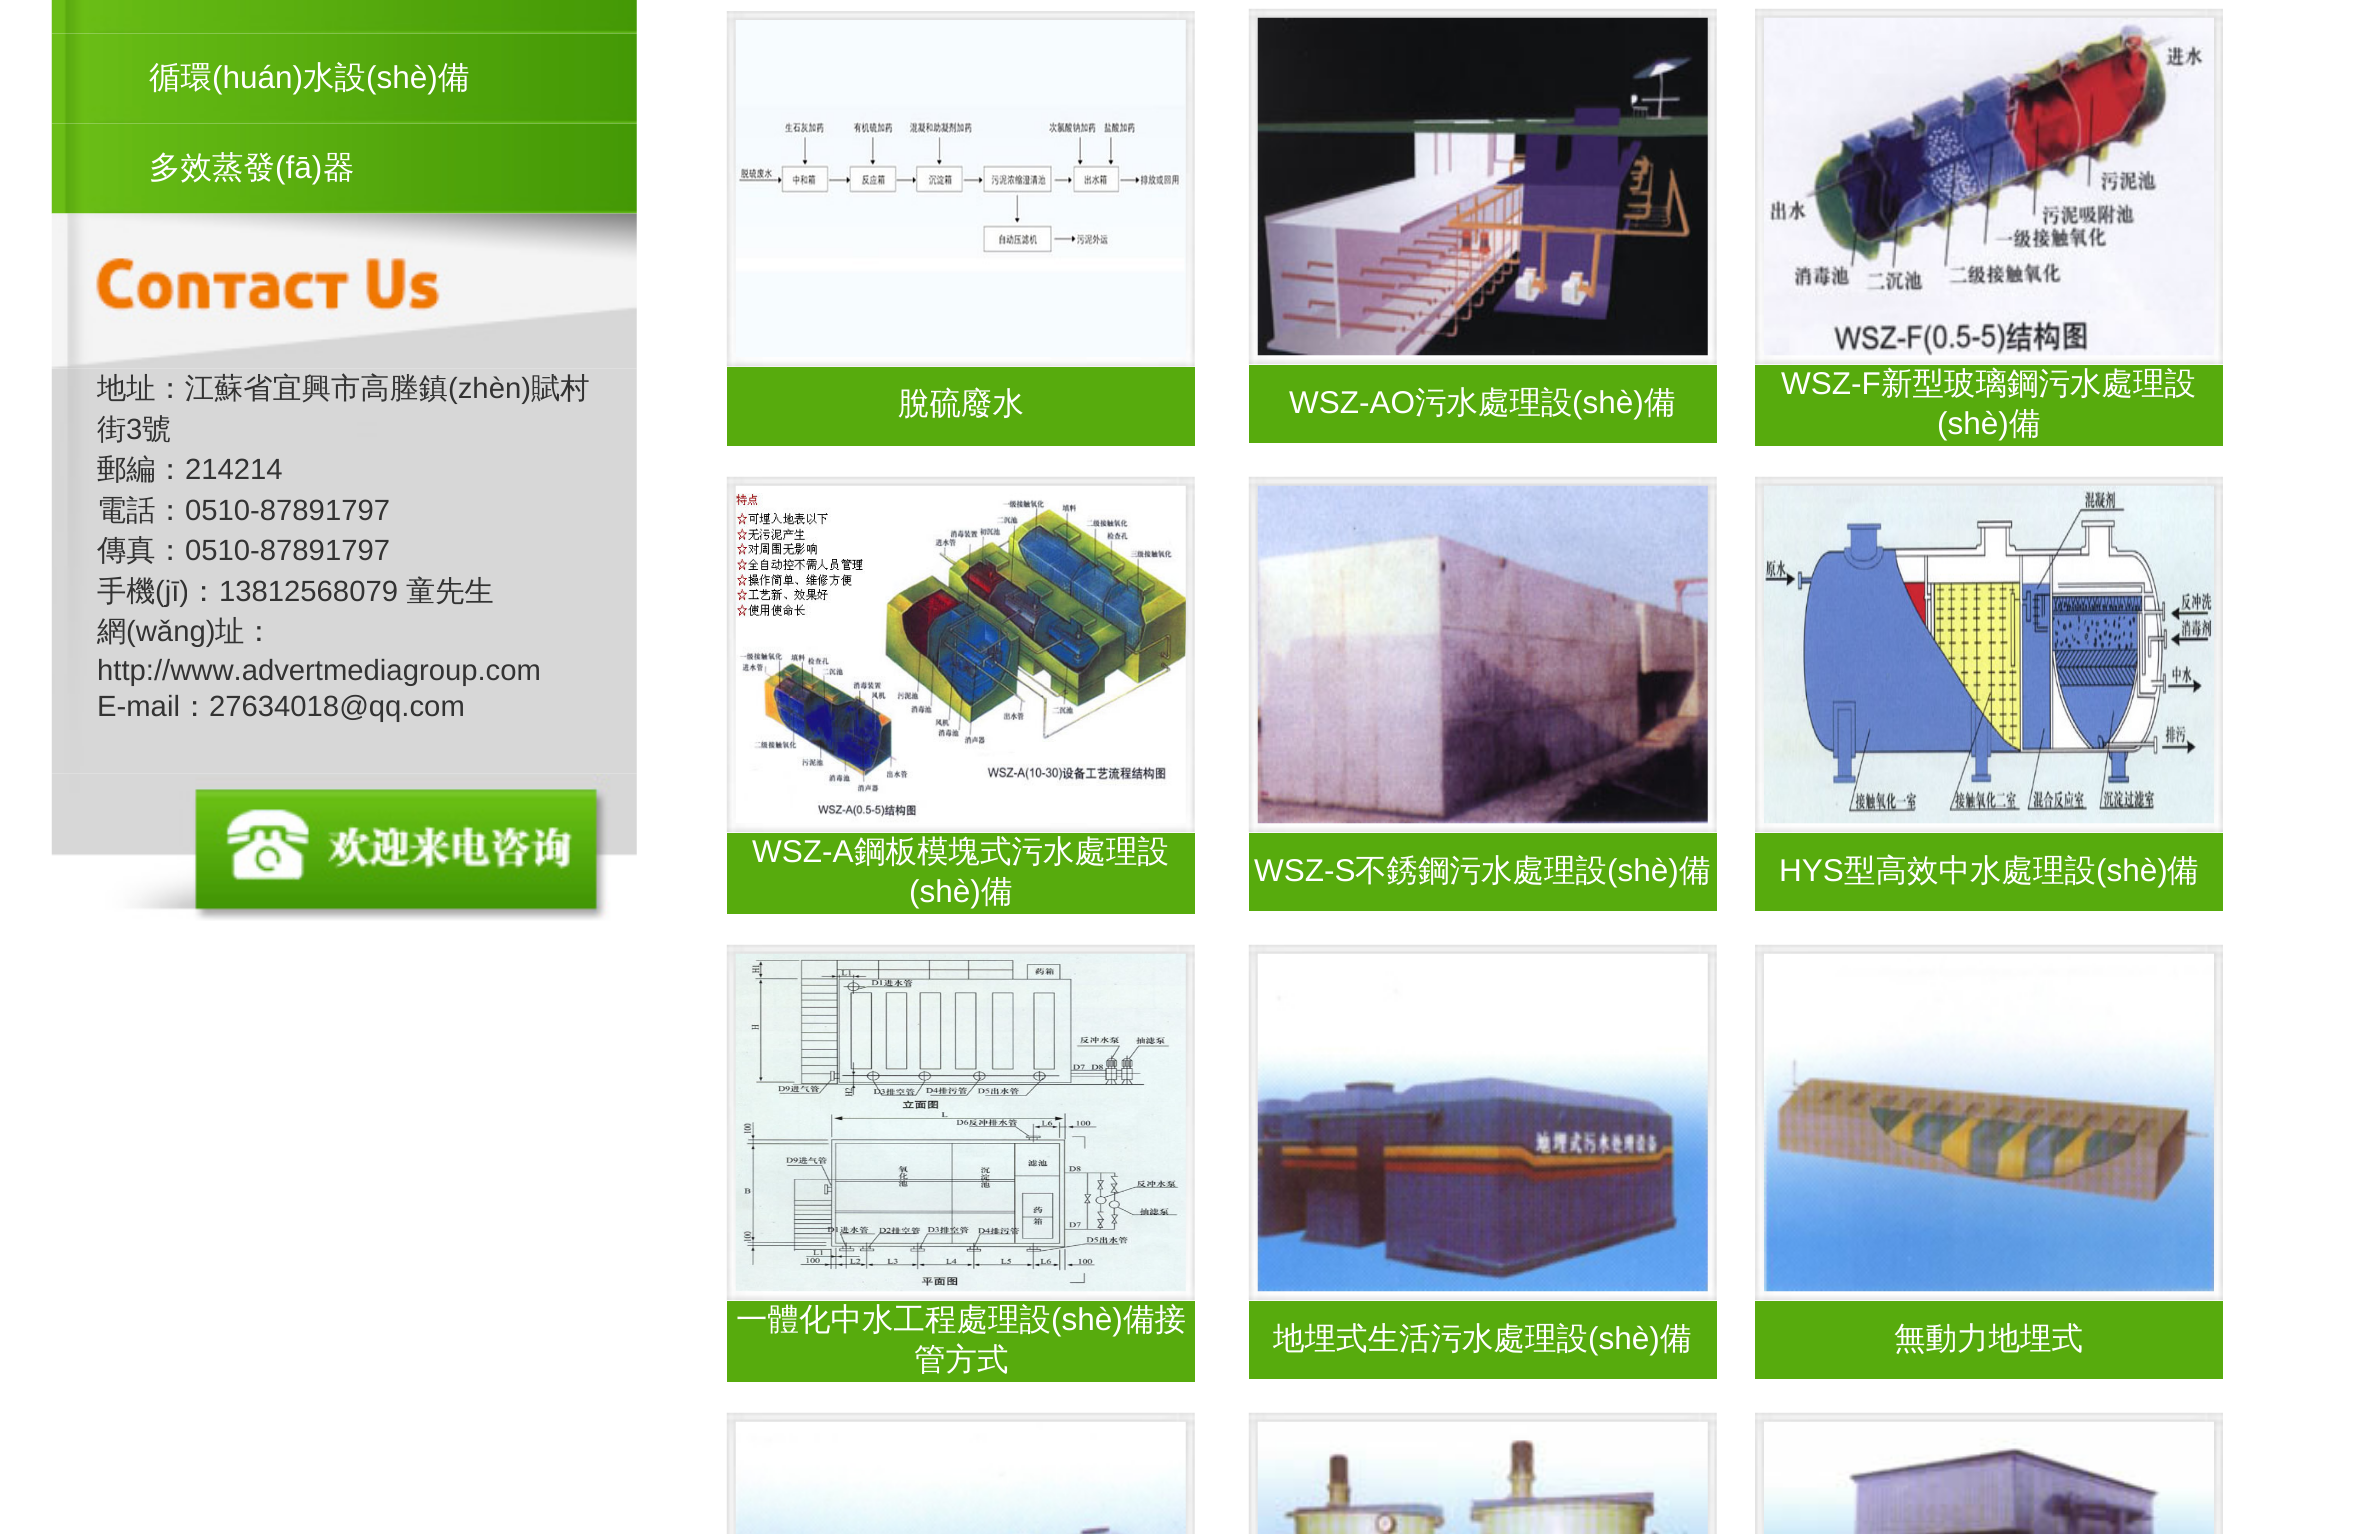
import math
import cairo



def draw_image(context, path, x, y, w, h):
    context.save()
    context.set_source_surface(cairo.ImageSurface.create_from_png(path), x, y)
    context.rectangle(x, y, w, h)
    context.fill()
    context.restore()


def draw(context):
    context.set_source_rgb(1, 1, 1)
    context.paint()
    draw_image(context, "images/1.png", 51, 0, 586, 34)
    draw_image(context, "images/2.png", 51, 33, 586, 91)
    draw_image(context, "images/2.png", 51, 123, 586, 91)
    draw_image(context, "images/3.png", 51, 213, 586, 156)
    draw_image(context, "images/4.png", 51, 368, 586, 406)
    draw_image(context, "images/5.png", 51, 773, 586, 148)
    draw_image(context, "images/6.png", 726, 11, 469, 356)
    draw_image(context, "images/7.png", 735, 20, 451, 337)
    context.set_source_rgb(87 / 255, 171 / 255, 13 / 255)
    context.rectangle(727, 367, 468, 79)
    context.fill()
    draw_image(context, "images/8.png", 1248, 8, 469, 357)
    draw_image(context, "images/9.png", 1257, 17, 451, 339)
    context.rectangle(1249, 365, 468, 78)
    context.fill()
    draw_image(context, "images/10.png", 1755, 8, 468, 357)
    draw_image(context, "images/11.png", 1764, 17, 450, 339)
    context.rectangle(1755, 365, 468, 81)
    context.fill()
    draw_image(context, "images/8.png", 726, 476, 469, 357)
    draw_image(context, "images/12.png", 735, 485, 451, 338)
    context.rectangle(727, 833, 468, 81)
    context.fill()
    draw_image(context, "images/8.png", 1248, 476, 469, 357)
    draw_image(context, "images/13.png", 1257, 485, 451, 339)
    context.rectangle(1249, 833, 468, 78)
    context.fill()
    draw_image(context, "images/10.png", 1755, 476, 468, 357)
    draw_image(context, "images/14.png", 1764, 485, 450, 339)
    context.rectangle(1755, 833, 468, 78)
    context.fill()
    draw_image(context, "images/8.png", 726, 944, 469, 357)
    draw_image(context, "images/15.png", 735, 953, 451, 339)
    context.rectangle(727, 1301, 468, 81)
    context.fill()
    draw_image(context, "images/8.png", 1248, 944, 469, 357)
    draw_image(context, "images/16.png", 1257, 953, 451, 339)
    context.rectangle(1249, 1301, 468, 78)
    context.fill()
    draw_image(context, "images/10.png", 1755, 944, 468, 357)
    draw_image(context, "images/17.png", 1764, 953, 450, 339)
    context.rectangle(1755, 1301, 468, 78)
    context.fill()
    draw_image(context, "images/18.png", 726, 1412, 469, 122)
    draw_image(context, "images/19.png", 735, 1421, 451, 113)
    draw_image(context, "images/18.png", 1248, 1412, 469, 122)
    draw_image(context, "images/20.png", 1257, 1421, 451, 113)
    draw_image(context, "images/21.png", 1755, 1412, 468, 122)
    draw_image(context, "images/22.png", 1764, 1421, 450, 113)
    context.select_font_face("WenQuanYi Zen Hei Medium")
    context.set_font_size(31.5)
    context.set_source_rgb(1, 1, 1)
    context.move_to(149, 88)
    context.show_text("循環")
    context.select_font_face("Liberation Sans")
    context.move_to(212, 88)
    context.show_text("(huán)")
    context.select_font_face("WenQuanYi Zen Hei Medium")
    context.move_to(303, 88)
    context.show_text("水設")
    context.select_font_face("Liberation Sans")
    context.move_to(366, 88)
    context.show_text("(shè)")
    context.select_font_face("WenQuanYi Zen Hei Medium")
    context.move_to(438, 88)
    context.show_text("備")
    context.move_to(149, 178)
    context.show_text("多效蒸發")
    context.select_font_face("Liberation Sans")
    context.move_to(275, 178)
    context.show_text("(fā)")
    context.select_font_face("WenQuanYi Zen Hei Medium")
    context.move_to(323, 178)
    context.show_text("器")
    context.set_font_size(29.25)
    context.set_source_rgb(51 / 255, 51 / 255, 51 / 255)
    context.move_to(97, 398)
    context.show_text("地址：江蘇省宜興市高塍鎮")
    context.select_font_face("Liberation Sans")
    context.move_to(448, 398)
    context.show_text("(zhèn)")
    context.select_font_face("WenQuanYi Zen Hei Medium")
    context.move_to(531, 398)
    context.show_text("賦村")
    context.move_to(97, 439)
    context.show_text("街")
    context.select_font_face("Liberation Sans")
    context.move_to(126, 439)
    context.show_text("3")
    context.select_font_face("WenQuanYi Zen Hei Medium")
    context.move_to(142, 439)
    context.show_text("號")
    context.move_to(97, 479)
    context.show_text("郵編：")
    context.select_font_face("Liberation Sans")
    context.move_to(185, 479)
    context.show_text("214214")
    context.select_font_face("WenQuanYi Zen Hei Medium")
    context.move_to(97, 520)
    context.show_text("電話：")
    context.select_font_face("Liberation Sans")
    context.move_to(185, 520)
    context.show_text("0510-87891797")
    context.select_font_face("WenQuanYi Zen Hei Medium")
    context.move_to(97, 560)
    context.show_text("傳真：")
    context.select_font_face("Liberation Sans")
    context.move_to(185, 560)
    context.show_text("0510-87891797")
    context.select_font_face("WenQuanYi Zen Hei Medium")
    context.move_to(97, 601)
    context.show_text("手機")
    context.select_font_face("Liberation Sans")
    context.move_to(155, 601)
    context.show_text("(jī)")
    context.select_font_face("WenQuanYi Zen Hei Medium")
    context.move_to(189, 601)
    context.show_text("：")
    context.select_font_face("Liberation Sans")
    context.move_to(219, 601)
    context.show_text("13812568079")
    context.select_font_face("WenQuanYi Zen Hei Medium")
    context.move_to(406, 601)
    context.show_text("童先生")
    context.move_to(97, 641)
    context.show_text("網")
    context.select_font_face("Liberation Sans")
    context.move_to(126, 641)
    context.show_text("(wǎng)")
    context.select_font_face("WenQuanYi Zen Hei Medium")
    context.move_to(215, 641)
    context.show_text("址：")
    context.select_font_face("Liberation Sans")
    context.move_to(97, 680)
    context.show_text("http://www.advertmediagroup.com")
    context.move_to(97, 716)
    context.show_text("E-mail")
    context.select_font_face("WenQuanYi Zen Hei Medium")
    context.move_to(180, 716)
    context.show_text("：")
    context.select_font_face("Liberation Sans")
    context.move_to(209, 716)
    context.show_text("27634018@qq.com")
    context.select_font_face("WenQuanYi Zen Hei Medium")
    context.set_font_size(31.5)
    context.set_source_rgb(1, 1, 1)
    context.move_to(898, 414)
    context.show_text("脫硫廢水")
    context.select_font_face("Liberation Sans")
    context.move_to(1289, 413)
    context.show_text("WSZ-AO")
    context.select_font_face("WenQuanYi Zen Hei Medium")
    context.move_to(1415, 413)
    context.show_text("污水處理設")
    context.select_font_face("Liberation Sans")
    context.move_to(1572, 413)
    context.show_text("(shè)")
    context.select_font_face("WenQuanYi Zen Hei Medium")
    context.move_to(1644, 413)
    context.show_text("備")
    context.select_font_face("Liberation Sans")
    context.move_to(1781, 394)
    context.show_text("WSZ-F")
    context.select_font_face("WenQuanYi Zen Hei Medium")
    context.move_to(1881, 394)
    context.show_text("新型玻璃鋼污水處理設")
    context.select_font_face("Liberation Sans")
    context.move_to(1937, 434)
    context.show_text("(shè)")
    context.select_font_face("WenQuanYi Zen Hei Medium")
    context.move_to(2009, 434)
    context.show_text("備")
    context.select_font_face("Liberation Sans")
    context.move_to(752, 862)
    context.show_text("WSZ-A")
    context.select_font_face("WenQuanYi Zen Hei Medium")
    context.move_to(854, 862)
    context.show_text("鋼板模塊式污水處理設")
    context.select_font_face("Liberation Sans")
    context.move_to(909, 902)
    context.show_text("(shè)")
    context.select_font_face("WenQuanYi Zen Hei Medium")
    context.move_to(981, 902)
    context.show_text("備")
    context.select_font_face("Liberation Sans")
    context.move_to(1254, 881)
    context.show_text("WSZ-S")
    context.select_font_face("WenQuanYi Zen Hei Medium")
    context.move_to(1355, 881)
    context.show_text("不銹鋼污水處理設")
    context.select_font_face("Liberation Sans")
    context.move_to(1607, 881)
    context.show_text("(shè)")
    context.select_font_face("WenQuanYi Zen Hei Medium")
    context.move_to(1679, 881)
    context.show_text("備")
    context.select_font_face("Liberation Sans")
    context.move_to(1779, 881)
    context.show_text("HYS")
    context.select_font_face("WenQuanYi Zen Hei Medium")
    context.move_to(1844, 881)
    context.show_text("型高效中水處理設")
    context.select_font_face("Liberation Sans")
    context.move_to(2096, 881)
    context.show_text("(shè)")
    context.select_font_face("WenQuanYi Zen Hei Medium")
    context.move_to(2167, 881)
    context.show_text("備")
    context.move_to(736, 1330)
    context.show_text("一體化中水工程處理設")
    context.select_font_face("Liberation Sans")
    context.move_to(1051, 1330)
    context.show_text("(shè)")
    context.select_font_face("WenQuanYi Zen Hei Medium")
    context.move_to(1123, 1330)
    context.show_text("備接")
    context.move_to(914, 1370)
    context.show_text("管方式")
    context.move_to(1273, 1349)
    context.show_text("地埋式生活污水處理設")
    context.select_font_face("Liberation Sans")
    context.move_to(1588, 1349)
    context.show_text("(shè)")
    context.select_font_face("WenQuanYi Zen Hei Medium")
    context.move_to(1660, 1349)
    context.show_text("備")
    context.move_to(1894, 1349)
    context.show_text("無動力地埋式")


surface = cairo.ImageSurface(cairo.Format.RGB24, 2353, 1534)
context = cairo.Context(surface)
options = cairo.FontOptions()
options.set_hint_metrics(cairo.HintMetrics.OFF)
options.set_hint_style(cairo.HintStyle.NONE)
context.set_font_options(options)
context.set_miter_limit(4)
draw(context)
surface.write_to_png("out.png")
